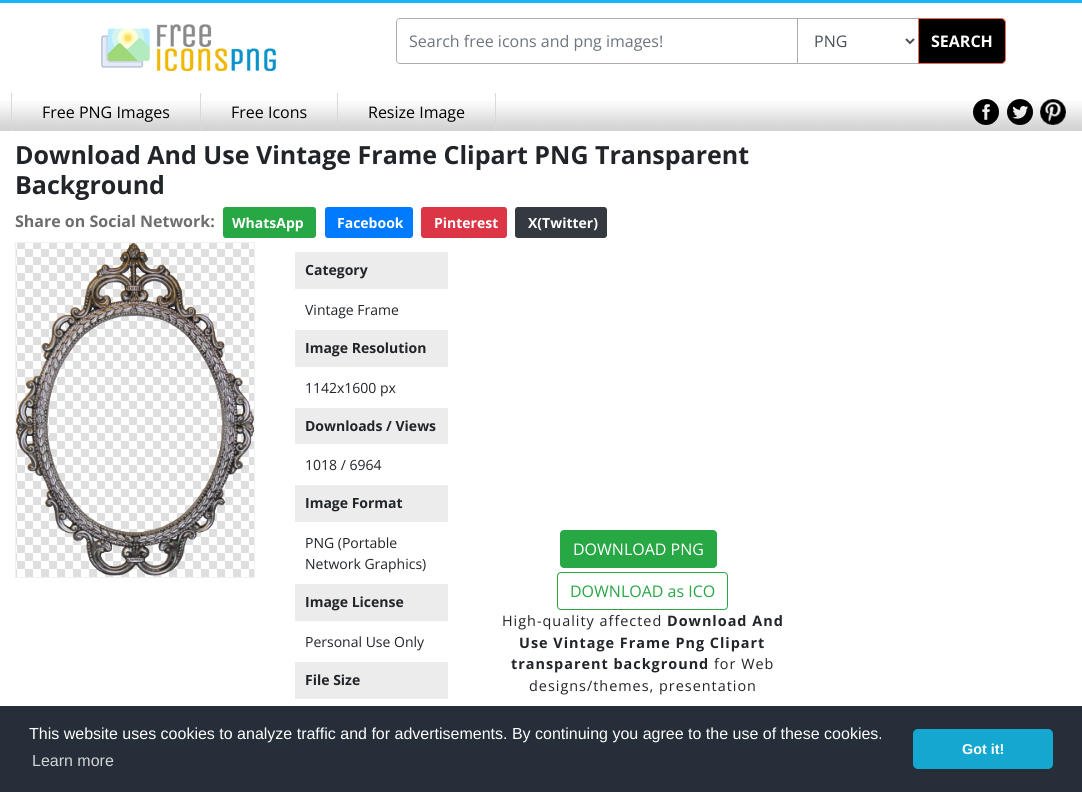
import math
import cairo



def draw_spaced(context, x, y, s, letter, word):
    context.move_to(x, y)
    for ch in s:
        context.show_text(ch)
        context.rel_move_to(letter + word * (ch == ' '), 0)


def rounded_rect(context, x, y, w, h, r):
    context.new_sub_path()
    for i, (u, v) in enumerate([(x + w - r, y + h - r), (x + r, y + h - r), (x + r, y + r), (x + w - r, y + r)]):
        context.arc(u, v, r, i * math.pi / 2, (i + 1) * math.pi / 2)
    context.close_path()


def draw_image(context, path, x, y, w, h):
    context.save()
    context.set_source_surface(cairo.ImageSurface.create_from_png(path), x, y)
    context.rectangle(x, y, w, h)
    context.fill()
    context.restore()


def draw(context):
    context.set_source_rgb(1, 1, 1)
    context.paint()
    context.set_source_rgb(25 / 255, 181 / 255, 254 / 255)
    context.rectangle(0, 0, 1082, 3)
    context.fill()
    draw_image(context, "images/1.png", 101, 24, 175, 47)
    context.set_source_rgb(173 / 255, 173 / 255, 173 / 255)
    context.set_fill_rule(cairo.FillRule.EVEN_ODD)
    context.new_path()
    context.move_to(400, 18)
    context.line_to(798, 18)
    context.line_to(798, 64)
    context.line_to(400, 64)
    context.curve_to(398, 64, 396, 62, 396, 60)
    context.line_to(396, 22)
    context.curve_to(396, 20, 398, 18, 400, 18)
    context.close_path()
    context.move_to(400, 19)
    context.line_to(798, 19)
    context.line_to(798, 63)
    context.line_to(400, 63)
    context.curve_to(398, 63, 397, 62, 397, 60)
    context.line_to(397, 22)
    context.curve_to(397, 20, 398, 19, 400, 19)
    context.close_path()
    context.fill()
    context.rectangle(797, 18, 121, 1)
    context.fill()
    context.rectangle(797, 63, 121, 1)
    context.fill()
    context.rectangle(797, 18, 1, 46)
    context.fill()
    context.new_path()
    context.move_to(906, 39)
    context.line_to(910, 43)
    context.line_to(914, 39)
    context.set_source_rgb(73 / 255, 80 / 255, 87 / 255)
    context.stroke()
    context.set_source_rgb(0, 0, 0)
    context.new_path()
    context.move_to(918.5, 18.5)
    context.line_to(1001, 18.5)
    context.curve_to(1003.5, 18.5, 1005.5, 20.5, 1005.5, 23)
    context.line_to(1005.5, 59)
    context.curve_to(1005.5, 61.5, 1003.5, 63.5, 1001, 63.5)
    context.line_to(918.5, 63.5)
    context.close_path()
    context.fill_preserve()
    context.set_source_rgb(242 / 255, 101 / 255, 78 / 255)
    context.set_line_width(1)
    context.stroke()
    draw_image(context, "images/2.png", 0, 101, 1082, 30)
    context.set_source_rgb(217 / 255, 217 / 255, 217 / 255)
    context.rectangle(11, 93, 1, 38)
    context.fill()
    context.rectangle(200, 93, 1, 38)
    context.fill()
    context.rectangle(337, 93, 1, 38)
    context.fill()
    context.rectangle(495, 93, 1, 38)
    context.fill()
    draw_image(context, "images/3.png", 973, 99, 26, 26)
    draw_image(context, "images/4.png", 1007, 99, 26, 26)
    draw_image(context, "images/5.png", 1040, 99, 26, 26)
    context.set_source_rgb(40 / 255, 167 / 255, 69 / 255)
    rounded_rect(context, 223.5, 207.5, 92, 30, 2.5)
    context.fill_preserve()
    context.stroke()
    context.set_source_rgb(0, 123 / 255, 1)
    rounded_rect(context, 325.5, 207.5, 87, 30, 2.5)
    context.fill_preserve()
    context.stroke()
    context.set_source_rgb(220 / 255, 53 / 255, 69 / 255)
    rounded_rect(context, 421.5, 207.5, 85, 30, 2.5)
    context.fill_preserve()
    context.stroke()
    context.set_source_rgb(52 / 255, 58 / 255, 64 / 255)
    rounded_rect(context, 515.5, 207.5, 91, 30, 2.5)
    context.fill_preserve()
    context.stroke()
    draw_image(context, "images/6.png", 16, 243, 238, 334)
    context.rectangle(15.5, 242.5, 239, 335)
    context.set_source_rgb(240 / 255, 240 / 255, 240 / 255)
    context.stroke()
    draw_image(context, "images/7.png", 16, 243, 238, 333)
    context.set_source_rgb(236 / 255, 236 / 255, 236 / 255)
    context.rectangle(295, 252, 153, 37)
    context.fill()
    context.rectangle(295, 330, 153, 37)
    context.fill()
    context.rectangle(295, 408, 153, 36)
    context.fill()
    context.rectangle(295, 485, 153, 37)
    context.fill()
    context.rectangle(295, 584, 153, 37)
    context.fill()
    context.rectangle(295, 662, 153, 37)
    context.fill()
    context.set_source_rgb(40 / 255, 167 / 255, 69 / 255)
    rounded_rect(context, 560.5, 530.5, 156, 37, 3.5)
    context.fill_preserve()
    context.stroke()
    rounded_rect(context, 557.5, 572.5, 170, 37, 3.5)
    context.stroke()
    context.set_source_rgb(37 / 255, 46 / 255, 57 / 255)
    context.rectangle(0, 706, 1082, 86)
    context.fill()
    context.set_source_rgb(20 / 255, 167 / 255, 208 / 255)
    rounded_rect(context, 913, 729, 140, 40, 5)
    context.fill()
    context.select_font_face("Open Sans")
    context.set_font_size(16)
    context.set_source_rgb(108 / 255, 117 / 255, 125 / 255)
    context.move_to(409, 47)
    context.show_text("Search free icons and png images!")
    context.set_source_rgb(73 / 255, 80 / 255, 87 / 255)
    context.move_to(814, 47)
    context.show_text("PNG")
    context.select_font_face("Open Sans", cairo.FontSlant.NORMAL, cairo.FontWeight.BOLD)
    context.set_source_rgb(1, 1, 1)
    context.move_to(931, 47)
    context.show_text("SEARCH")
    context.select_font_face("Open Sans")
    context.set_source_rgb(0, 0, 0)
    context.move_to(42, 118)
    context.show_text("Free PNG Images")
    context.move_to(231, 118)
    context.show_text("Free Icons")
    context.move_to(368, 118)
    context.show_text("Resize Image")
    context.select_font_face("Open Sans", cairo.FontSlant.NORMAL, cairo.FontWeight.BOLD)
    context.set_font_size(25)
    context.set_source_rgb(33 / 255, 37 / 255, 41 / 255)
    context.move_to(15, 164)
    context.show_text("Download And Use Vintage Frame Clipart PNG Transparent")
    context.move_to(15, 194)
    context.show_text("Background")
    context.set_font_size(16)
    context.set_source_rgb(109 / 255, 109 / 255, 110 / 255)
    context.move_to(15, 227)
    context.show_text("Share on Social Network:")
    context.set_font_size(14)
    context.set_source_rgb(1, 1, 1)
    context.move_to(232, 228)
    context.show_text("WhatsApp")
    context.move_to(337, 228)
    context.show_text("Facebook")
    context.move_to(434, 228)
    context.show_text("Pinterest")
    context.move_to(528, 228)
    context.show_text("X(Twitter)")
    context.set_source_rgb(33 / 255, 37 / 255, 41 / 255)
    context.move_to(305, 275)
    context.show_text("Category")
    context.select_font_face("Open Sans")
    context.move_to(305, 315)
    context.show_text("Vintage Frame")
    context.select_font_face("Open Sans", cairo.FontSlant.NORMAL, cairo.FontWeight.BOLD)
    context.move_to(305, 353)
    context.show_text("Image Resolution")
    context.select_font_face("Open Sans")
    context.move_to(305, 393)
    context.show_text("1142x1600 px")
    context.select_font_face("Open Sans", cairo.FontSlant.NORMAL, cairo.FontWeight.BOLD)
    context.move_to(305, 431)
    context.show_text("Downloads / Views")
    context.select_font_face("Open Sans")
    context.move_to(305, 470)
    context.show_text("1018 / 6964")
    context.select_font_face("Open Sans", cairo.FontSlant.NORMAL, cairo.FontWeight.BOLD)
    context.move_to(305, 508)
    context.show_text("Image Format")
    context.select_font_face("Open Sans")
    context.move_to(305, 548)
    context.show_text("PNG (Portable")
    context.move_to(305, 569)
    context.show_text("Network Graphics)")
    context.select_font_face("Open Sans", cairo.FontSlant.NORMAL, cairo.FontWeight.BOLD)
    context.move_to(305, 607)
    context.show_text("Image License")
    context.select_font_face("Open Sans")
    context.move_to(305, 647)
    context.show_text("Personal Use Only")
    context.select_font_face("Open Sans", cairo.FontSlant.NORMAL, cairo.FontWeight.BOLD)
    context.move_to(305, 685)
    context.show_text("File Size")
    context.select_font_face("Open Sans")
    context.set_font_size(16)
    context.set_source_rgb(1, 1, 1)
    context.move_to(573, 555)
    context.show_text("DOWNLOAD PNG")
    context.set_source_rgb(40 / 255, 167 / 255, 69 / 255)
    context.move_to(570, 597)
    context.show_text("DOWNLOAD as ICO")
    context.set_font_size(14.4)
    context.set_source_rgb(33 / 255, 37 / 255, 41 / 255)
    draw_spaced(context, 502, 626, "High-quality affected", 1, 0)
    context.select_font_face("Open Sans", cairo.FontSlant.NORMAL, cairo.FontWeight.BOLD)
    draw_spaced(context, 667, 626, "Download And", 1, 0)
    draw_spaced(context, 519, 648, "Use Vintage Frame Png Clipart", 1, 0)
    draw_spaced(context, 511, 669, "transparent background", 1, 0)
    context.select_font_face("Open Sans")
    draw_spaced(context, 714, 669, "for Web", 1, 0)
    draw_spaced(context, 529, 691, "designs/themes, presentation", 1, 0)
    context.select_font_face("Liberation Sans")
    context.set_font_size(16)
    context.set_source_rgb(1, 1, 1)
    context.move_to(29, 739)
    context.show_text("This website uses cookies to analyze traffic and for advertisements. By continuing you agree to the use of these cookies.")
    context.set_source_rgb(211 / 255, 213 / 255, 215 / 255)
    context.move_to(32, 766)
    context.show_text("Learn more")
    context.select_font_face("Liberation Sans", cairo.FontSlant.NORMAL, cairo.FontWeight.BOLD)
    context.set_font_size(14.4)
    context.set_source_rgb(1, 1, 1)
    context.move_to(962, 754)
    context.show_text("Got it!")


surface = cairo.ImageSurface(cairo.Format.RGB24, 1082, 792)
context = cairo.Context(surface)
options = cairo.FontOptions()
options.set_hint_metrics(cairo.HintMetrics.OFF)
options.set_hint_style(cairo.HintStyle.NONE)
context.set_font_options(options)
context.set_miter_limit(4)
draw(context)
surface.write_to_png("out.png")
